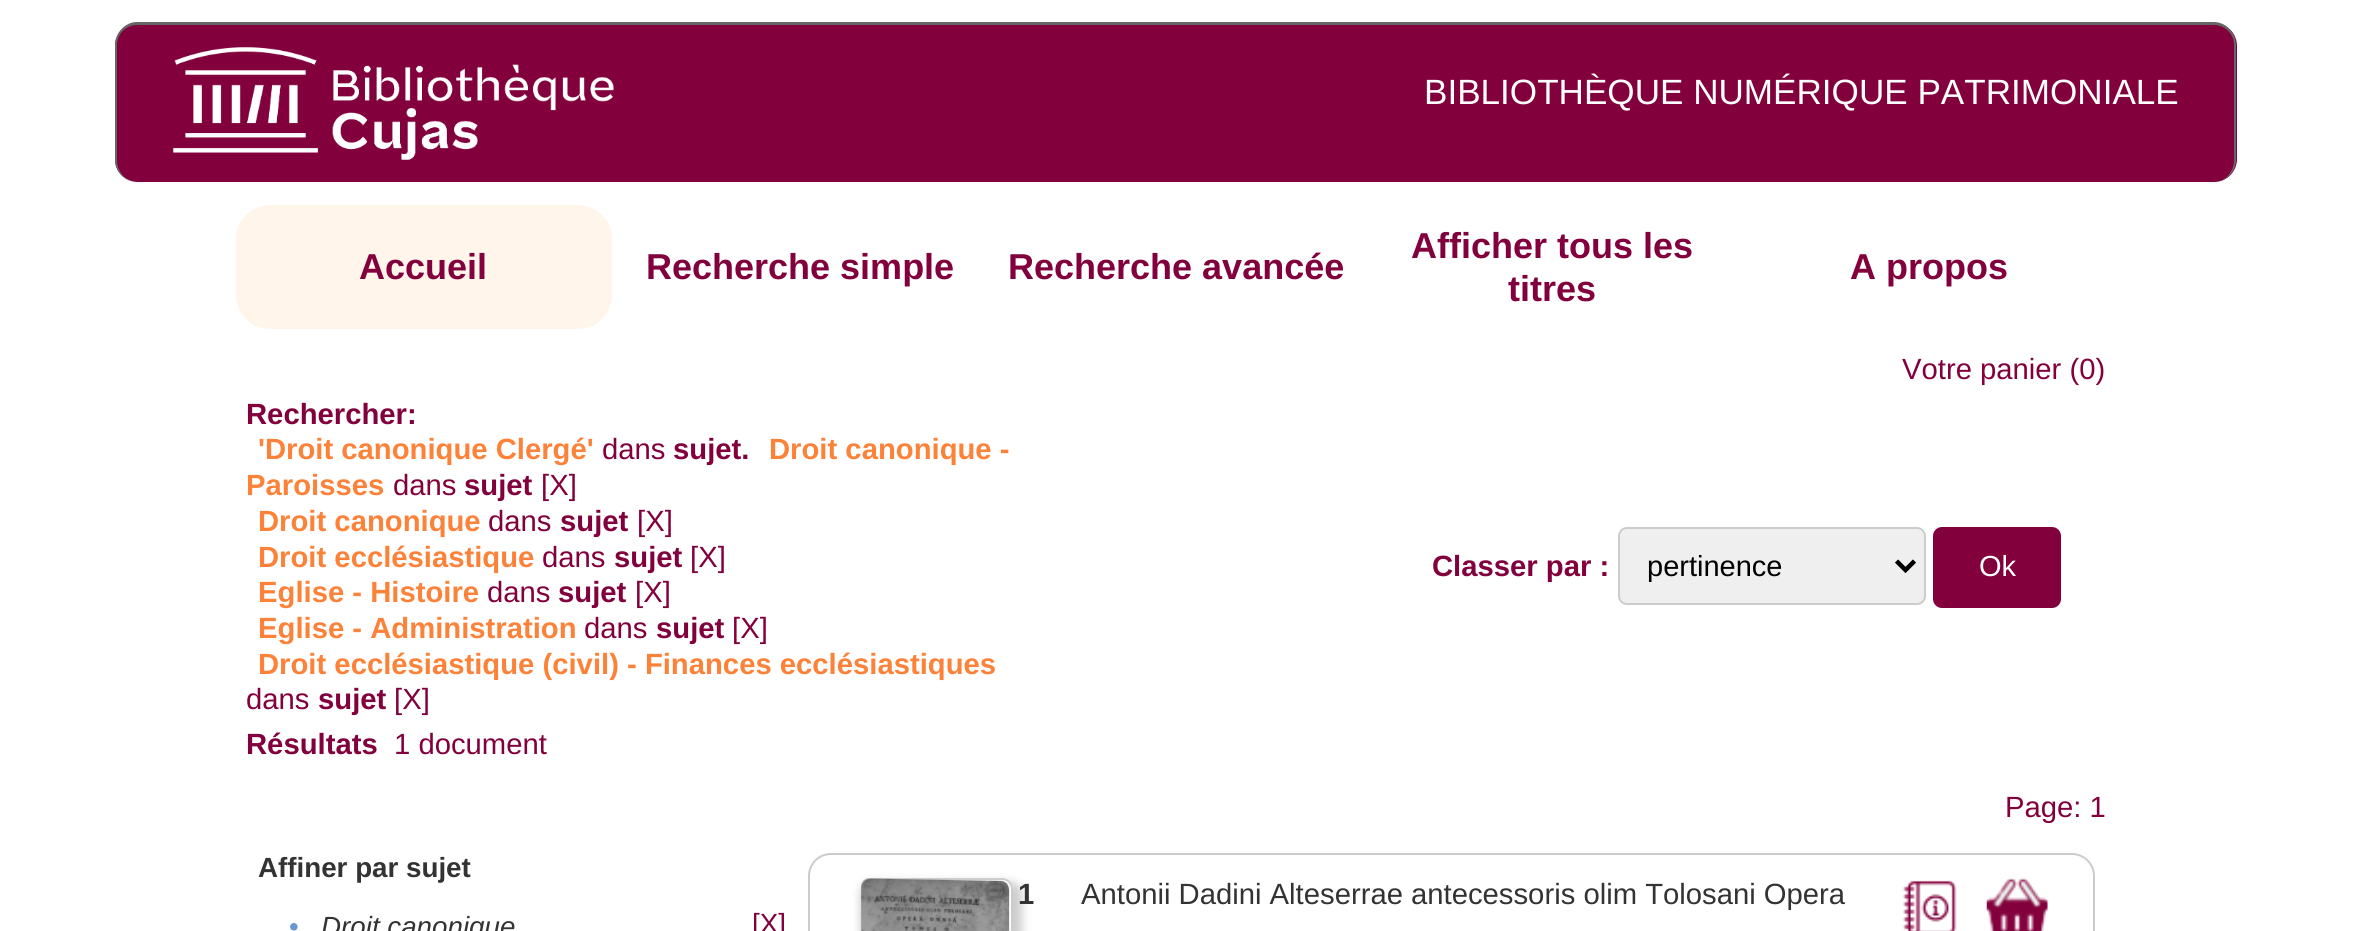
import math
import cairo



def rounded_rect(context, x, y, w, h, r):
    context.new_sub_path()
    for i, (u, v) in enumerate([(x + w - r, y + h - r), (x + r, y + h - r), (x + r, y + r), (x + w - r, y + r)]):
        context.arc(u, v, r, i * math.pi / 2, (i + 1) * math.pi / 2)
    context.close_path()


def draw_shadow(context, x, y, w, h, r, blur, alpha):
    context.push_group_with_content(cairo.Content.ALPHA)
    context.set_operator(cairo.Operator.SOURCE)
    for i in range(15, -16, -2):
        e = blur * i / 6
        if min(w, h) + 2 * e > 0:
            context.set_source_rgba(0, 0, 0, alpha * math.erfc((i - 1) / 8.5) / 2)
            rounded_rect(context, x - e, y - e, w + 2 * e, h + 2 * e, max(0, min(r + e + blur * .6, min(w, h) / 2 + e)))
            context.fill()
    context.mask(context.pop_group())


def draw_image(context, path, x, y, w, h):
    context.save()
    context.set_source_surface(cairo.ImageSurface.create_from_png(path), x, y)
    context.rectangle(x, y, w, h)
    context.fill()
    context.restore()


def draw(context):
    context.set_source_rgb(1, 1, 1)
    context.paint()
    context.set_source_rgb(130 / 255, 0, 60 / 255)
    rounded_rect(context, 115, 23, 2122, 159, 23)
    context.fill()
    context.set_source_rgb(102 / 255, 102 / 255, 102 / 255)
    context.set_fill_rule(cairo.FillRule.EVEN_ODD)
    context.new_path()
    context.move_to(137, 22)
    context.line_to(2214, 22)
    context.curve_to(2226, 22, 2236, 33, 2236, 45)
    context.line_to(2236, 160)
    context.curve_to(2236, 172, 2226, 182, 2214, 182)
    context.line_to(137, 182)
    context.curve_to(125, 182, 115, 172, 115, 160)
    context.line_to(115, 45)
    context.curve_to(115, 33, 125, 22, 137, 22)
    context.close_path()
    context.move_to(137, 25)
    context.line_to(2214, 25)
    context.curve_to(2225, 25, 2234, 34, 2234, 45)
    context.line_to(2234, 160)
    context.curve_to(2234, 172, 2225, 182, 2214, 182)
    context.line_to(137, 182)
    context.curve_to(126, 182, 117, 172, 117, 160)
    context.line_to(117, 45)
    context.curve_to(117, 34, 126, 25, 137, 25)
    context.close_path()
    context.fill()
    draw_image(context, "images/1.png", 173, 47, 441, 113)
    context.set_source_rgb(1, 245 / 255, 235 / 255)
    rounded_rect(context, 236, 205, 376, 124, 34)
    context.fill()
    context.set_source_rgb(239 / 255, 239 / 255, 239 / 255)
    rounded_rect(context, 1619, 528, 306, 76, 8)
    context.fill_preserve()
    context.set_source_rgb(204 / 255, 204 / 255, 204 / 255)
    context.stroke()
    context.new_path()
    context.move_to(1896.5, 561)
    context.line_to(1905.5, 570)
    context.line_to(1914.5, 561)
    context.set_source_rgb(0, 0, 0)
    context.set_line_width(4.5)
    context.stroke()
    context.set_source_rgb(130 / 255, 0, 60 / 255)
    rounded_rect(context, 1933, 527, 128, 81, 9)
    context.fill()
    rounded_rect(context, 809, 854, 1285, 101, 22)
    context.set_source_rgb(204 / 255, 204 / 255, 204 / 255)
    context.set_line_width(2)
    context.stroke()
    context.save()
    context.new_path()
    context.move_to(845, 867)
    context.line_to(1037, 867)
    context.line_to(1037, 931)
    context.line_to(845, 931)
    context.close_path()
    context.move_to(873, 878)
    context.line_to(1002, 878)
    context.curve_to(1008, 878, 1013, 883, 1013, 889)
    context.line_to(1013, 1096)
    context.curve_to(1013, 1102, 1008, 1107, 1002, 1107)
    context.line_to(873, 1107)
    context.curve_to(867, 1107, 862, 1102, 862, 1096)
    context.line_to(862, 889)
    context.curve_to(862, 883, 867, 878, 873, 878)
    context.close_path()
    context.clip()
    context.set_source_rgb(0, 0, 0)
    draw_shadow(context, 860, 882, 162, 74, 11, 4.5, 0.2)
    context.restore()
    rounded_rect(context, 863, 879, 149, 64, 10)
    context.stroke()
    draw_image(context, "images/2.png", 861, 878, 149, 53)
    draw_image(context, "images/3.png", 1902, 880, 55, 51)
    draw_image(context, "images/4.png", 1986, 877, 62, 54)
    context.select_font_face("Liberation Sans")
    context.set_font_size(35.1)
    context.set_source_rgb(1, 1, 1)
    context.move_to(1424, 104)
    context.show_text("BIBLIOTHÈQUE NUMÉRIQUE PATRIMONIALE")
    context.select_font_face("Liberation Sans", cairo.FontSlant.NORMAL, cairo.FontWeight.BOLD)
    context.set_font_size(36)
    context.set_source_rgb(130 / 255, 0, 60 / 255)
    context.move_to(359, 279)
    context.show_text("Accueil")
    context.move_to(646, 279)
    context.show_text("Recherche simple")
    context.move_to(1008, 279)
    context.show_text("Recherche avancée")
    context.move_to(1411, 258)
    context.show_text("Afficher tous les")
    context.move_to(1508, 301)
    context.show_text("titres")
    context.move_to(1850, 279)
    context.show_text("A propos")
    context.select_font_face("Liberation Sans")
    context.set_font_size(29.25)
    context.move_to(1902, 379)
    context.show_text("Votre panier (0)")
    context.select_font_face("Liberation Sans", cairo.FontSlant.NORMAL, cairo.FontWeight.BOLD)
    context.move_to(246, 424)
    context.show_text("Rechercher:")
    context.set_source_rgb(253 / 255, 130 / 255, 57 / 255)
    context.move_to(258, 459)
    context.show_text("'Droit canonique Clergé'")
    context.select_font_face("Liberation Sans")
    context.set_source_rgb(130 / 255, 0, 60 / 255)
    context.move_to(602, 459)
    context.show_text("dans")
    context.select_font_face("Liberation Sans", cairo.FontSlant.NORMAL, cairo.FontWeight.BOLD)
    context.move_to(673, 459)
    context.show_text("sujet.")
    context.set_source_rgb(253 / 255, 130 / 255, 57 / 255)
    context.move_to(769, 459)
    context.show_text("Droit canonique -")
    context.move_to(246, 495)
    context.show_text("Paroisses")
    context.select_font_face("Liberation Sans")
    context.set_source_rgb(130 / 255, 0, 60 / 255)
    context.move_to(393, 495)
    context.show_text("dans")
    context.select_font_face("Liberation Sans", cairo.FontSlant.NORMAL, cairo.FontWeight.BOLD)
    context.move_to(464, 495)
    context.show_text("sujet")
    context.select_font_face("Liberation Sans")
    context.move_to(541, 495)
    context.show_text("[X]")
    context.select_font_face("Liberation Sans", cairo.FontSlant.NORMAL, cairo.FontWeight.BOLD)
    context.set_source_rgb(253 / 255, 130 / 255, 57 / 255)
    context.move_to(258, 531)
    context.show_text("Droit canonique")
    context.select_font_face("Liberation Sans")
    context.set_source_rgb(130 / 255, 0, 60 / 255)
    context.move_to(488, 531)
    context.show_text("dans")
    context.select_font_face("Liberation Sans", cairo.FontSlant.NORMAL, cairo.FontWeight.BOLD)
    context.move_to(560, 531)
    context.show_text("sujet")
    context.select_font_face("Liberation Sans")
    context.move_to(637, 531)
    context.show_text("[X]")
    context.select_font_face("Liberation Sans", cairo.FontSlant.NORMAL, cairo.FontWeight.BOLD)
    context.set_source_rgb(253 / 255, 130 / 255, 57 / 255)
    context.move_to(258, 567)
    context.show_text("Droit ecclésiastique")
    context.select_font_face("Liberation Sans")
    context.set_source_rgb(130 / 255, 0, 60 / 255)
    context.move_to(542, 567)
    context.show_text("dans")
    context.select_font_face("Liberation Sans", cairo.FontSlant.NORMAL, cairo.FontWeight.BOLD)
    context.move_to(614, 567)
    context.show_text("sujet")
    context.select_font_face("Liberation Sans")
    context.move_to(690, 567)
    context.show_text("[X]")
    context.select_font_face("Liberation Sans", cairo.FontSlant.NORMAL, cairo.FontWeight.BOLD)
    context.set_source_rgb(253 / 255, 130 / 255, 57 / 255)
    context.move_to(258, 602)
    context.show_text("Eglise - Histoire")
    context.select_font_face("Liberation Sans")
    context.set_source_rgb(130 / 255, 0, 60 / 255)
    context.move_to(487, 602)
    context.show_text("dans")
    context.select_font_face("Liberation Sans", cairo.FontSlant.NORMAL, cairo.FontWeight.BOLD)
    context.move_to(558, 602)
    context.show_text("sujet")
    context.select_font_face("Liberation Sans")
    context.move_to(635, 602)
    context.show_text("[X]")
    context.select_font_face("Liberation Sans", cairo.FontSlant.NORMAL, cairo.FontWeight.BOLD)
    context.set_source_rgb(253 / 255, 130 / 255, 57 / 255)
    context.move_to(258, 638)
    context.show_text("Eglise - Administration")
    context.select_font_face("Liberation Sans")
    context.set_source_rgb(130 / 255, 0, 60 / 255)
    context.move_to(584, 638)
    context.show_text("dans")
    context.select_font_face("Liberation Sans", cairo.FontSlant.NORMAL, cairo.FontWeight.BOLD)
    context.move_to(656, 638)
    context.show_text("sujet")
    context.select_font_face("Liberation Sans")
    context.move_to(732, 638)
    context.show_text("[X]")
    context.select_font_face("Liberation Sans", cairo.FontSlant.NORMAL, cairo.FontWeight.BOLD)
    context.set_source_rgb(253 / 255, 130 / 255, 57 / 255)
    context.move_to(258, 674)
    context.show_text("Droit ecclésiastique (civil) - Finances ecclésiastiques")
    context.select_font_face("Liberation Sans")
    context.set_source_rgb(130 / 255, 0, 60 / 255)
    context.move_to(246, 709)
    context.show_text("dans")
    context.select_font_face("Liberation Sans", cairo.FontSlant.NORMAL, cairo.FontWeight.BOLD)
    context.move_to(318, 709)
    context.show_text("sujet")
    context.select_font_face("Liberation Sans")
    context.move_to(394, 709)
    context.show_text("[X]")
    context.select_font_face("Liberation Sans", cairo.FontSlant.NORMAL, cairo.FontWeight.BOLD)
    context.move_to(1432, 576)
    context.show_text("Classer par :")
    context.select_font_face("Liberation Sans")
    context.set_font_size(29)
    context.set_source_rgb(0, 0, 0)
    context.move_to(1647, 576)
    context.show_text("pertinence")
    context.set_source_rgb(1, 1, 1)
    context.move_to(1979, 576)
    context.show_text("Ok")
    context.select_font_face("Liberation Sans", cairo.FontSlant.NORMAL, cairo.FontWeight.BOLD)
    context.set_font_size(29.25)
    context.set_source_rgb(130 / 255, 0, 60 / 255)
    context.move_to(246, 754)
    context.show_text("Résultats")
    context.select_font_face("Liberation Sans")
    context.move_to(394, 754)
    context.show_text("1 document")
    context.move_to(2005, 817)
    context.show_text("Page: 1")
    context.select_font_face("Liberation Sans", cairo.FontSlant.NORMAL, cairo.FontWeight.BOLD)
    context.set_font_size(27.75)
    context.set_source_rgb(51 / 255, 51 / 255, 51 / 255)
    context.move_to(258, 877)
    context.show_text("Affiner par sujet")
    context.select_font_face("Liberation Sans")
    context.set_source_rgb(102 / 255, 153 / 255, 204 / 255)
    context.move_to(289, 936)
    context.show_text("•")
    context.select_font_face("Liberation Sans", cairo.FontSlant.ITALIC)
    context.set_source_rgb(51 / 255, 51 / 255, 51 / 255)
    context.move_to(321, 936)
    context.show_text("Droit canonique")
    context.select_font_face("Liberation Sans")
    context.set_source_rgb(130 / 255, 0, 60 / 255)
    context.move_to(752, 933)
    context.show_text("[X]")
    context.set_font_size(29.25)
    context.set_source_rgb(51 / 255, 51 / 255, 51 / 255)
    context.move_to(1081, 904)
    context.show_text("Antonii Dadini Alteserrae antecessoris olim Tolosani Opera")
    context.select_font_face("Liberation Sans", cairo.FontSlant.NORMAL, cairo.FontWeight.BOLD)
    context.move_to(1018, 904)
    context.show_text("1")


surface = cairo.ImageSurface(cairo.Format.RGB24, 2375, 931)
context = cairo.Context(surface)
options = cairo.FontOptions()
options.set_hint_metrics(cairo.HintMetrics.OFF)
options.set_hint_style(cairo.HintStyle.NONE)
context.set_font_options(options)
context.set_miter_limit(4)
draw(context)
surface.write_to_png("out.png")
